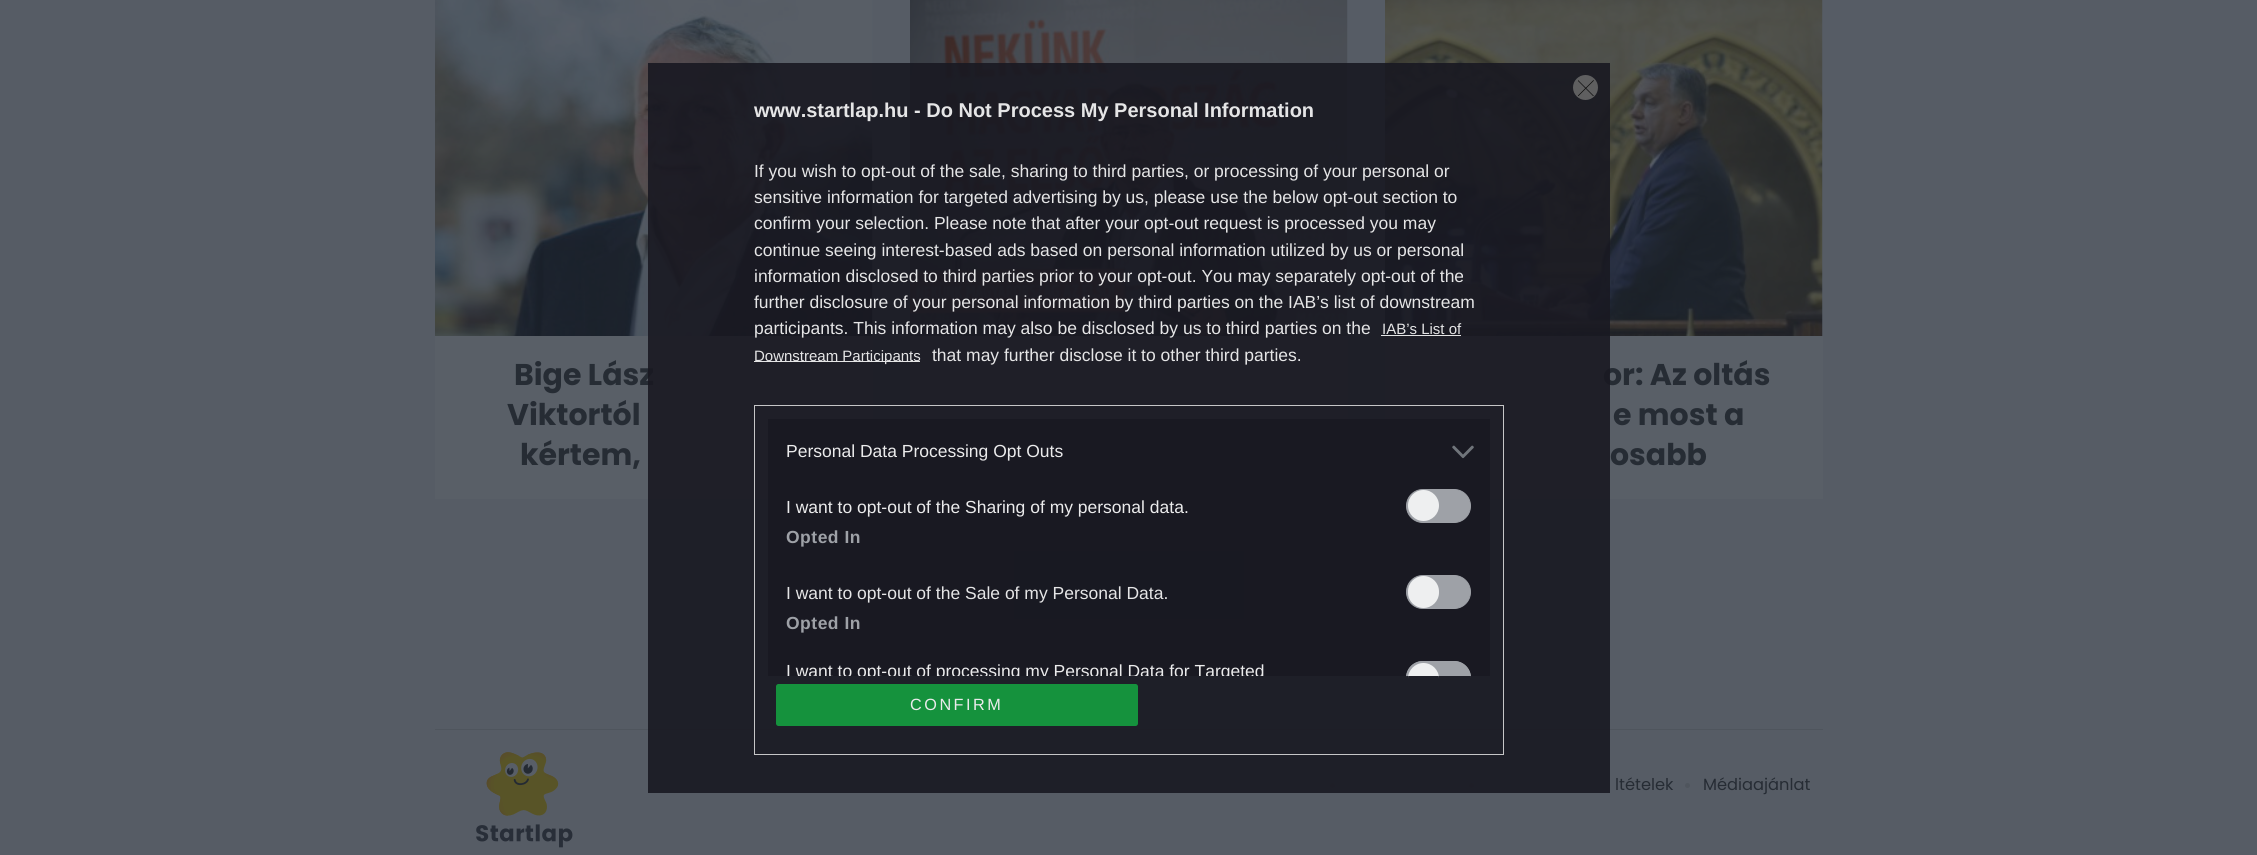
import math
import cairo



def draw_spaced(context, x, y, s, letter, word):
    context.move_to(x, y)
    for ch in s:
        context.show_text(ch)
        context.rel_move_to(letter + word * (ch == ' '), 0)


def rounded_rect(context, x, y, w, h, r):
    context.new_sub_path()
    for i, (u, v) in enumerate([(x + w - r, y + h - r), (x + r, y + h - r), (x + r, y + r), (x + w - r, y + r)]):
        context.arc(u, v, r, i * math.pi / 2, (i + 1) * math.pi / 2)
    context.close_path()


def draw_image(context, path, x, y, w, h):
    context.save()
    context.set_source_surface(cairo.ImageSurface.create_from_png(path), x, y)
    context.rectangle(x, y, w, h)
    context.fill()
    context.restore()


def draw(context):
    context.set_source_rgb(86 / 255, 92 / 255, 101 / 255)
    context.paint()
    draw_image(context, "images/2.png", 435, 0, 438, 336)
    context.set_source_rgb(89 / 255, 95 / 255, 103 / 255)
    context.rectangle(435, 336, 438, 163)
    context.fill()
    draw_image(context, "images/3.png", 910, 0, 438, 336)
    context.rectangle(910, 336, 438, 163)
    context.fill()
    draw_image(context, "images/4.png", 1385, 0, 438, 336)
    context.rectangle(1385, 336, 438, 163)
    context.fill()
    context.set_source_rgb(34 / 255, 51 / 255, 67 / 255)
    context.rectangle(1014, 551, 230, 68)
    context.fill()
    context.set_source_rgb(79 / 255, 85 / 255, 93 / 255)
    context.rectangle(435, 729, 1388, 1)
    context.fill()
    draw_image(context, "images/5.png", 476, 752, 97, 96)
    context.arc(1332.5, 785.5, 2.5, 0, 2 * math.pi)
    context.fill()
    context.arc(1471.5, 785.5, 2.5, 0, 2 * math.pi)
    context.fill()
    context.arc(1687.5, 785.5, 2.5, 0, 2 * math.pi)
    context.fill()
    context.select_font_face("Poppins", cairo.FontSlant.NORMAL, cairo.FontWeight.BOLD)
    context.set_font_size(30)
    context.set_source_rgb(38 / 255, 44 / 255, 52 / 255)
    context.move_to(514, 385)
    context.show_text("Bige Lász")
    context.move_to(507, 425)
    context.show_text("Viktortól")
    context.move_to(520, 465)
    context.show_text("kértem,")
    context.move_to(1603, 385)
    context.show_text("or: Az oltás")
    context.set_source_rgba(25 / 255, 25 / 255, 34 / 255, 0.9)
    context.rectangle(648, 63, 962, 730)
    context.fill()
    context.rectangle(754.5, 405.5, 749, 349)
    context.set_source_rgba(216 / 255, 216 / 255, 216 / 255, 0.9)
    context.set_line_width(1)
    context.stroke()
    context.set_source_rgba(25 / 255, 25 / 255, 34 / 255, 0.9)
    context.rectangle(768, 419, 722, 257)
    context.fill()
    context.set_source_rgb(158 / 255, 161 / 255, 167 / 255)
    context.new_path()
    context.move_to(1423, 661)
    context.line_to(1454, 661)
    context.curve_to(1463.5, 661, 1471, 668.5, 1471, 678)
    context.line_to(1471, 676)
    context.line_to(1406, 676)
    context.line_to(1406, 678)
    context.curve_to(1406, 668.5, 1413.5, 661, 1423, 661)
    context.close_path()
    context.fill()
    context.save()
    context.rectangle(768, 419, 722, 257)
    context.clip()
    rounded_rect(context, 1406.5, 661.5, 64, 33, 16.5)
    context.stroke()
    context.restore()
    context.set_source_rgb(238 / 255, 239 / 255, 240 / 255)
    context.new_path()
    context.move_to(1423.5, 663)
    context.curve_to(1432, 663, 1439, 670, 1439, 678.5)
    context.line_to(1439, 676)
    context.line_to(1408, 676)
    context.line_to(1408, 678.5)
    context.curve_to(1408, 670, 1415, 663, 1423.5, 663)
    context.close_path()
    context.fill()
    context.set_source_rgb(158 / 255, 161 / 255, 167 / 255)
    rounded_rect(context, 1406.5, 575.5, 64, 33, 16.5)
    context.fill_preserve()
    context.stroke()
    context.set_source_rgb(238 / 255, 239 / 255, 240 / 255)
    rounded_rect(context, 1408, 576, 31, 32, 15.5)
    context.fill()
    context.set_source_rgb(158 / 255, 161 / 255, 167 / 255)
    rounded_rect(context, 1406.5, 489.5, 64, 33, 16.5)
    context.fill_preserve()
    context.stroke()
    context.set_source_rgb(238 / 255, 239 / 255, 240 / 255)
    context.arc(1423.5, 505.5, 15.5, 0, 2 * math.pi)
    context.fill()
    draw_image(context, "images/1.png", 1452, 445, 22, 14)
    context.set_source_rgb(95 / 255, 95 / 255, 96 / 255)
    context.arc(1585.5, 87.5, 12.5, 0, 2 * math.pi)
    context.fill()
    context.save()
    context.rectangle(1578, 80, 16, 16)
    context.clip()
    context.new_path()
    context.move_to(1578, 80.5)
    context.line_to(1593.5, 96)
    context.move_to(1593.5, 80.5)
    context.line_to(1578, 96)
    context.set_source_rgb(10 / 255, 10 / 255, 10 / 255)
    context.set_line_width(0.7)
    context.set_line_cap(cairo.LineCap.ROUND)
    context.set_line_join(cairo.LineJoin.ROUND)
    context.stroke()
    context.restore()
    context.set_source_rgb(21 / 255, 146 / 255, 61 / 255)
    rounded_rect(context, 776, 684, 362, 42, 2.5)
    context.fill()
    context.select_font_face("Liberation Sans")
    context.set_font_size(16.25)
    context.set_source_rgb(235 / 255, 235 / 255, 236 / 255)
    draw_spaced(context, 910, 710, "CONFIRM", 2.5, 0)
    context.save()
    context.rectangle(768, 419, 722, 257)
    context.clip()
    context.set_font_size(17.5)
    context.move_to(786, 677)
    context.show_text("I want to opt-out of processing my Personal Data for Targeted")
    context.restore()
    context.select_font_face("Liberation Sans", cairo.FontSlant.NORMAL, cairo.FontWeight.BOLD)
    context.set_font_size(17.5)
    context.set_source_rgb(158 / 255, 161 / 255, 167 / 255)
    draw_spaced(context, 786, 629, "Opted In", 0.5, 0)
    context.select_font_face("Liberation Sans")
    context.set_source_rgb(229 / 255, 229 / 255, 230 / 255)
    context.move_to(786, 599)
    context.show_text("I want to opt-out of the Sale of my Personal Data.")
    context.select_font_face("Liberation Sans", cairo.FontSlant.NORMAL, cairo.FontWeight.BOLD)
    context.set_source_rgb(158 / 255, 161 / 255, 167 / 255)
    draw_spaced(context, 786, 543, "Opted In", 0.5, 0)
    context.select_font_face("Liberation Sans")
    context.set_source_rgb(235 / 255, 235 / 255, 236 / 255)
    context.move_to(786, 513)
    context.show_text("I want to opt-out of the Sharing of my personal data.")
    context.move_to(786, 457)
    context.show_text("Personal Data Processing Opt Outs")
    context.set_source_rgb(229 / 255, 229 / 255, 230 / 255)
    context.move_to(932, 361)
    context.show_text("that may further disclose it to other third parties.")
    context.set_source_rgba(251 / 255, 251 / 255, 251 / 255, 0.9)
    context.rectangle(754, 361, 166, 1)
    context.fill()
    context.set_font_size(15)
    context.set_source_rgb(229 / 255, 229 / 255, 230 / 255)
    context.move_to(754, 361)
    context.show_text("Downstream Participants")
    context.move_to(1382, 334)
    context.show_text("IAB’s List of")
    context.set_source_rgba(251 / 255, 251 / 255, 251 / 255, 0.9)
    context.rectangle(1381, 335, 80, 1)
    context.fill()
    context.set_font_size(17.5)
    context.set_source_rgb(229 / 255, 229 / 255, 230 / 255)
    context.move_to(754, 334)
    context.show_text("participants. This information may also be disclosed by us to third parties on the")
    context.move_to(754, 308)
    context.show_text("further disclosure of your personal information by third parties on the IAB’s list of downstream")
    context.move_to(754, 282)
    context.show_text("information disclosed to third parties prior to your opt-out. You may separately opt-out of the")
    context.move_to(754, 256)
    context.show_text("continue seeing interest-based ads based on personal information utilized by us or personal")
    context.move_to(754, 229)
    context.show_text("confirm your selection. Please note that after your opt-out request is processed you may")
    context.move_to(754, 203)
    context.show_text("sensitive information for targeted advertising by us, please use the below opt-out section to")
    context.move_to(754, 177)
    context.show_text("If you wish to opt-out of the sale, sharing to third parties, or processing of your personal or")
    context.select_font_face("Liberation Sans", cairo.FontSlant.NORMAL, cairo.FontWeight.BOLD)
    context.set_font_size(20)
    context.move_to(754, 117)
    context.show_text("www.startlap.hu - Do Not Process My Personal Information")
    context.select_font_face("Poppins", cairo.FontSlant.NORMAL, cairo.FontWeight.BOLD)
    context.set_font_size(30)
    context.set_source_rgb(38 / 255, 44 / 255, 52 / 255)
    context.move_to(1613, 425)
    context.show_text("e most a")
    context.move_to(1610, 465)
    context.show_text("osabb")
    context.select_font_face("Poppins")
    context.set_font_size(16.25)
    context.move_to(1615, 790)
    context.show_text("ltételek")
    context.move_to(1703, 790)
    context.show_text("Médiaajánlat")


surface = cairo.ImageSurface(cairo.Format.RGB24, 2257, 855)
context = cairo.Context(surface)
options = cairo.FontOptions()
options.set_hint_metrics(cairo.HintMetrics.OFF)
options.set_hint_style(cairo.HintStyle.NONE)
context.set_font_options(options)
context.set_miter_limit(4)
draw(context)
surface.write_to_png("out.png")
